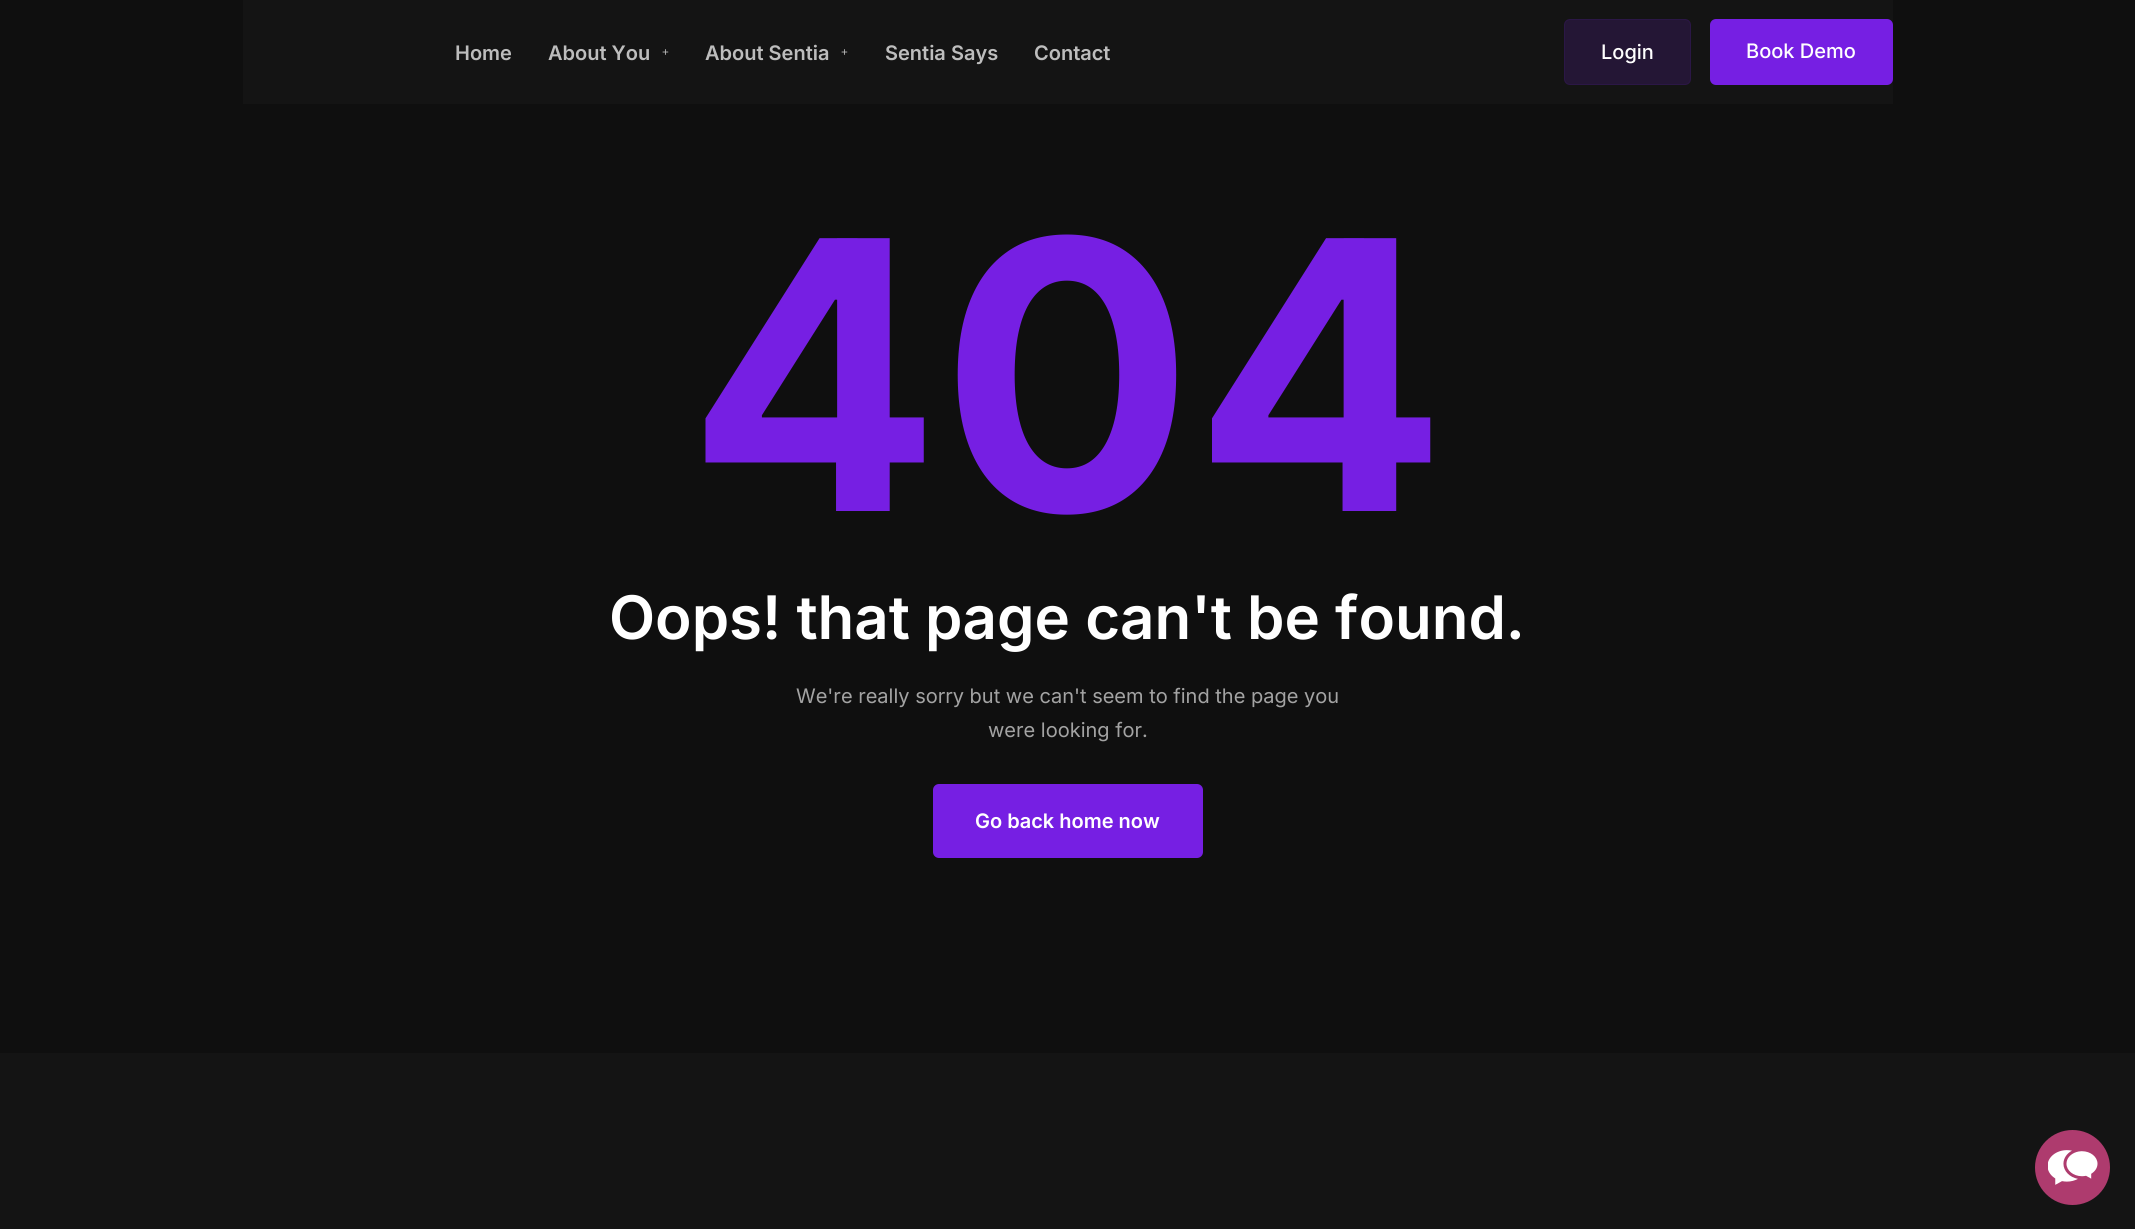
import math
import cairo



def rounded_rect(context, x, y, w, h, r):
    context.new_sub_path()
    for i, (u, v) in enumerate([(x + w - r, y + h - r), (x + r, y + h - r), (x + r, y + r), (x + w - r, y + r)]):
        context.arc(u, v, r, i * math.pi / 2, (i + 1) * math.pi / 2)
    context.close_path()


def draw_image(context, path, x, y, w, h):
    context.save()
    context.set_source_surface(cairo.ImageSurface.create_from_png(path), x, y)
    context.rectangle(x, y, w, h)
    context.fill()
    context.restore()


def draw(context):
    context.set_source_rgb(20 / 255, 20 / 255, 20 / 255)
    context.paint()
    context.set_source_rgb(15 / 255, 15 / 255, 15 / 255)
    context.rectangle(0, 0, 2135, 1053)
    context.fill()
    context.set_source_rgb(20 / 255, 20 / 255, 20 / 255)
    context.rectangle(243, 0, 1650, 104)
    context.fill()
    context.set_source_rgb(36 / 255, 22 / 255, 53 / 255)
    rounded_rect(context, 1564, 19, 127, 66, 6)
    context.fill()
    rounded_rect(context, 1564.5, 19.5, 126, 65, 5.5)
    context.set_source_rgba(118 / 255, 31 / 255, 227 / 255, 0.1)
    context.set_line_width(1)
    context.stroke()
    context.set_source_rgb(118 / 255, 31 / 255, 227 / 255)
    rounded_rect(context, 1710, 19, 183, 66, 6)
    context.fill()
    rounded_rect(context, 933, 784, 270, 74, 6)
    context.fill()
    context.set_source_rgb(174 / 255, 59 / 255, 110 / 255)
    context.arc(2072.5, 1167.5, 37.5, 0, 2 * math.pi)
    context.fill()
    draw_image(context, "images/1.png", 2048, 1150, 50, 35)
    context.select_font_face("Inter SemiBold")
    context.set_font_size(20)
    context.set_source_rgb(189 / 255, 189 / 255, 189 / 255)
    context.move_to(455, 60)
    context.show_text("Home")
    context.move_to(548, 60)
    context.show_text("About You")
    context.select_font_face("Liberation Serif", cairo.FontSlant.NORMAL, cairo.FontWeight.BOLD)
    context.set_font_size(12)
    context.move_to(662, 56)
    context.show_text("+")
    context.select_font_face("Inter SemiBold")
    context.set_font_size(20)
    context.move_to(705, 60)
    context.show_text("About Sentia")
    context.select_font_face("Liberation Serif", cairo.FontSlant.NORMAL, cairo.FontWeight.BOLD)
    context.set_font_size(12)
    context.move_to(841, 56)
    context.show_text("+")
    context.select_font_face("Inter SemiBold")
    context.set_font_size(20)
    context.move_to(885, 60)
    context.show_text("Sentia Says")
    context.move_to(1034, 60)
    context.show_text("Contact")
    context.select_font_face("Inter Medium")
    context.set_source_rgb(1, 1, 1)
    context.move_to(1601, 59)
    context.show_text("Login")
    context.move_to(1746, 58)
    context.show_text("Book Demo")
    context.select_font_face("Inter", cairo.FontSlant.NORMAL, cairo.FontWeight.BOLD)
    context.set_font_size(375)
    context.set_source_rgb(118 / 255, 31 / 255, 227 / 255)
    context.move_to(687, 511)
    context.show_text("404")
    context.select_font_face("Inter SemiBold")
    context.set_font_size(60)
    context.set_source_rgb(1, 1, 1)
    context.move_to(609, 639)
    context.show_text("Oops! that page can't be found.")
    context.select_font_face("Inter")
    context.set_font_size(20)
    context.set_source_rgb(163 / 255, 163 / 255, 163 / 255)
    context.move_to(796, 703)
    context.show_text("We're really sorry but we can't seem to find the page you")
    context.move_to(988, 737)
    context.show_text("were looking for.")
    context.select_font_face("Inter SemiBold")
    context.set_source_rgb(1, 1, 1)
    context.move_to(975, 828)
    context.show_text("Go back home now")


surface = cairo.ImageSurface(cairo.Format.RGB24, 2135, 1229)
context = cairo.Context(surface)
options = cairo.FontOptions()
options.set_hint_metrics(cairo.HintMetrics.OFF)
options.set_hint_style(cairo.HintStyle.NONE)
context.set_font_options(options)
context.set_miter_limit(4)
draw(context)
surface.write_to_png("out.png")
